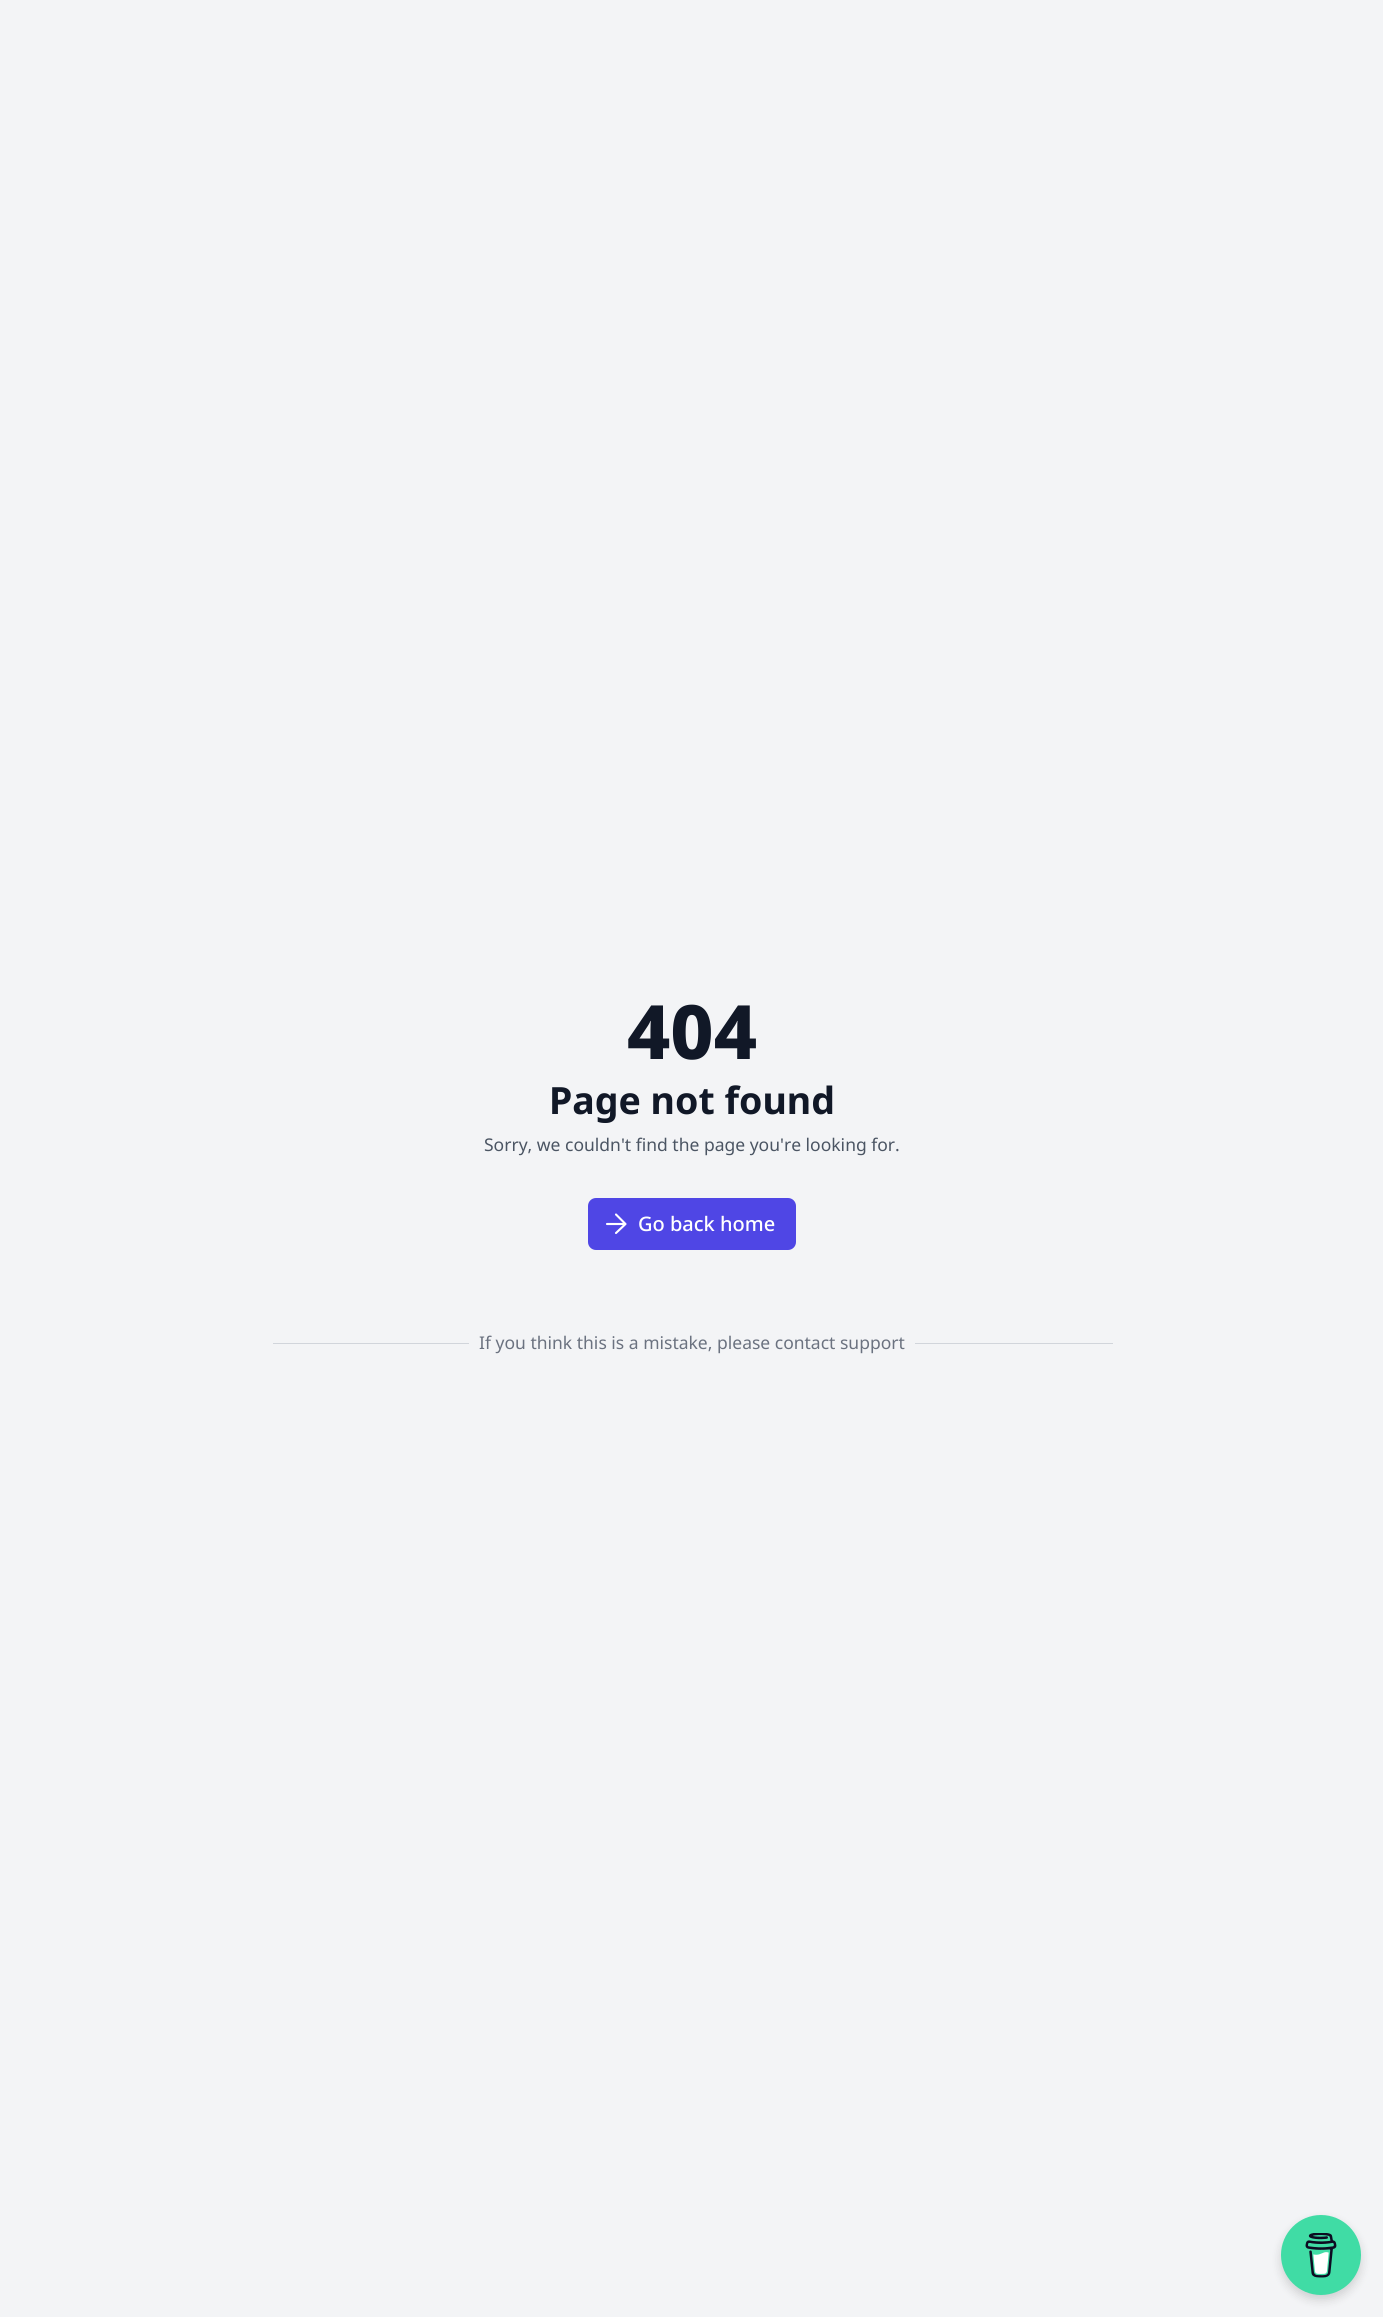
import math
import cairo



def rounded_rect(context, x, y, w, h, r):
    context.new_sub_path()
    for i, (u, v) in enumerate([(x + w - r, y + h - r), (x + r, y + h - r), (x + r, y + r), (x + w - r, y + r)]):
        context.arc(u, v, r, i * math.pi / 2, (i + 1) * math.pi / 2)
    context.close_path()


def draw_shadow(context, x, y, w, h, r, blur, alpha):
    context.push_group_with_content(cairo.Content.ALPHA)
    context.set_operator(cairo.Operator.SOURCE)
    for i in range(15, -16, -2):
        e = blur * i / 6
        if min(w, h) + 2 * e > 0:
            context.set_source_rgba(0, 0, 0, alpha * math.erfc((i - 1) / 8.5) / 2)
            rounded_rect(context, x - e, y - e, w + 2 * e, h + 2 * e, max(0, min(r + e + blur * .6, min(w, h) / 2 + e)))
            context.fill()
    context.mask(context.pop_group())


def draw_image(context, path, x, y, w, h):
    context.save()
    context.set_source_surface(cairo.ImageSurface.create_from_png(path), x, y)
    context.rectangle(x, y, w, h)
    context.fill()
    context.restore()


def draw(context):
    context.set_source_rgb(243 / 255, 244 / 255, 246 / 255)
    context.paint()
    context.set_source_rgb(79 / 255, 70 / 255, 229 / 255)
    rounded_rect(context, 588, 1198, 208, 52, 8)
    context.fill()
    context.new_path()
    context.move_to(607, 1224)
    context.line_to(625.5, 1224)
    context.move_to(616, 1214.5)
    context.line_to(625.5, 1224)
    context.line_to(616, 1233)
    context.set_source_rgb(1, 1, 1)
    context.set_line_width(2.1)
    context.set_line_cap(cairo.LineCap.ROUND)
    context.set_line_join(cairo.LineJoin.ROUND)
    context.stroke()
    context.set_source_rgb(209 / 255, 213 / 255, 219 / 255)
    context.rectangle(273, 1343, 840, 1)
    context.fill()
    context.set_source_rgb(243 / 255, 244 / 255, 246 / 255)
    context.rectangle(469, 1343, 446, 1)
    context.fill()
    context.set_source_rgb(0, 0, 0)
    draw_shadow(context, 1281, 2220, 80, 80, 40, 5, 0.15)
    context.set_source_rgb(64 / 255, 220 / 255, 165 / 255)
    context.arc(1321, 2255, 40, 0, 2 * math.pi)
    context.fill()
    draw_image(context, "images/1.png", 1305, 2233, 32, 45)
    context.select_font_face("Noto Sans ExtraBold")
    context.set_font_size(75)
    context.set_source_rgb(17 / 255, 24 / 255, 39 / 255)
    context.move_to(627, 1059)
    context.show_text("404")
    context.select_font_face("Noto Sans", cairo.FontSlant.NORMAL, cairo.FontWeight.BOLD)
    context.set_font_size(37.5)
    context.move_to(549, 1114)
    context.show_text("Page not found")
    context.select_font_face("Noto Sans")
    context.set_font_size(17.5)
    context.set_source_rgb(75 / 255, 85 / 255, 99 / 255)
    context.move_to(484, 1151)
    context.show_text("Sorry, we couldn't find the page you're looking for.")
    context.select_font_face("Noto Sans Medium")
    context.set_font_size(20)
    context.set_source_rgb(1, 1, 1)
    context.move_to(638, 1231)
    context.show_text("Go back home")
    context.select_font_face("Noto Sans")
    context.set_font_size(17.5)
    context.set_source_rgb(107 / 255, 114 / 255, 128 / 255)
    context.move_to(479, 1349)
    context.show_text("If you think this is a mistake, please contact support")


surface = cairo.ImageSurface(cairo.Format.RGB24, 1383, 2317)
context = cairo.Context(surface)
options = cairo.FontOptions()
options.set_hint_metrics(cairo.HintMetrics.OFF)
options.set_hint_style(cairo.HintStyle.NONE)
context.set_font_options(options)
context.set_miter_limit(4)
draw(context)
surface.write_to_png("out.png")
